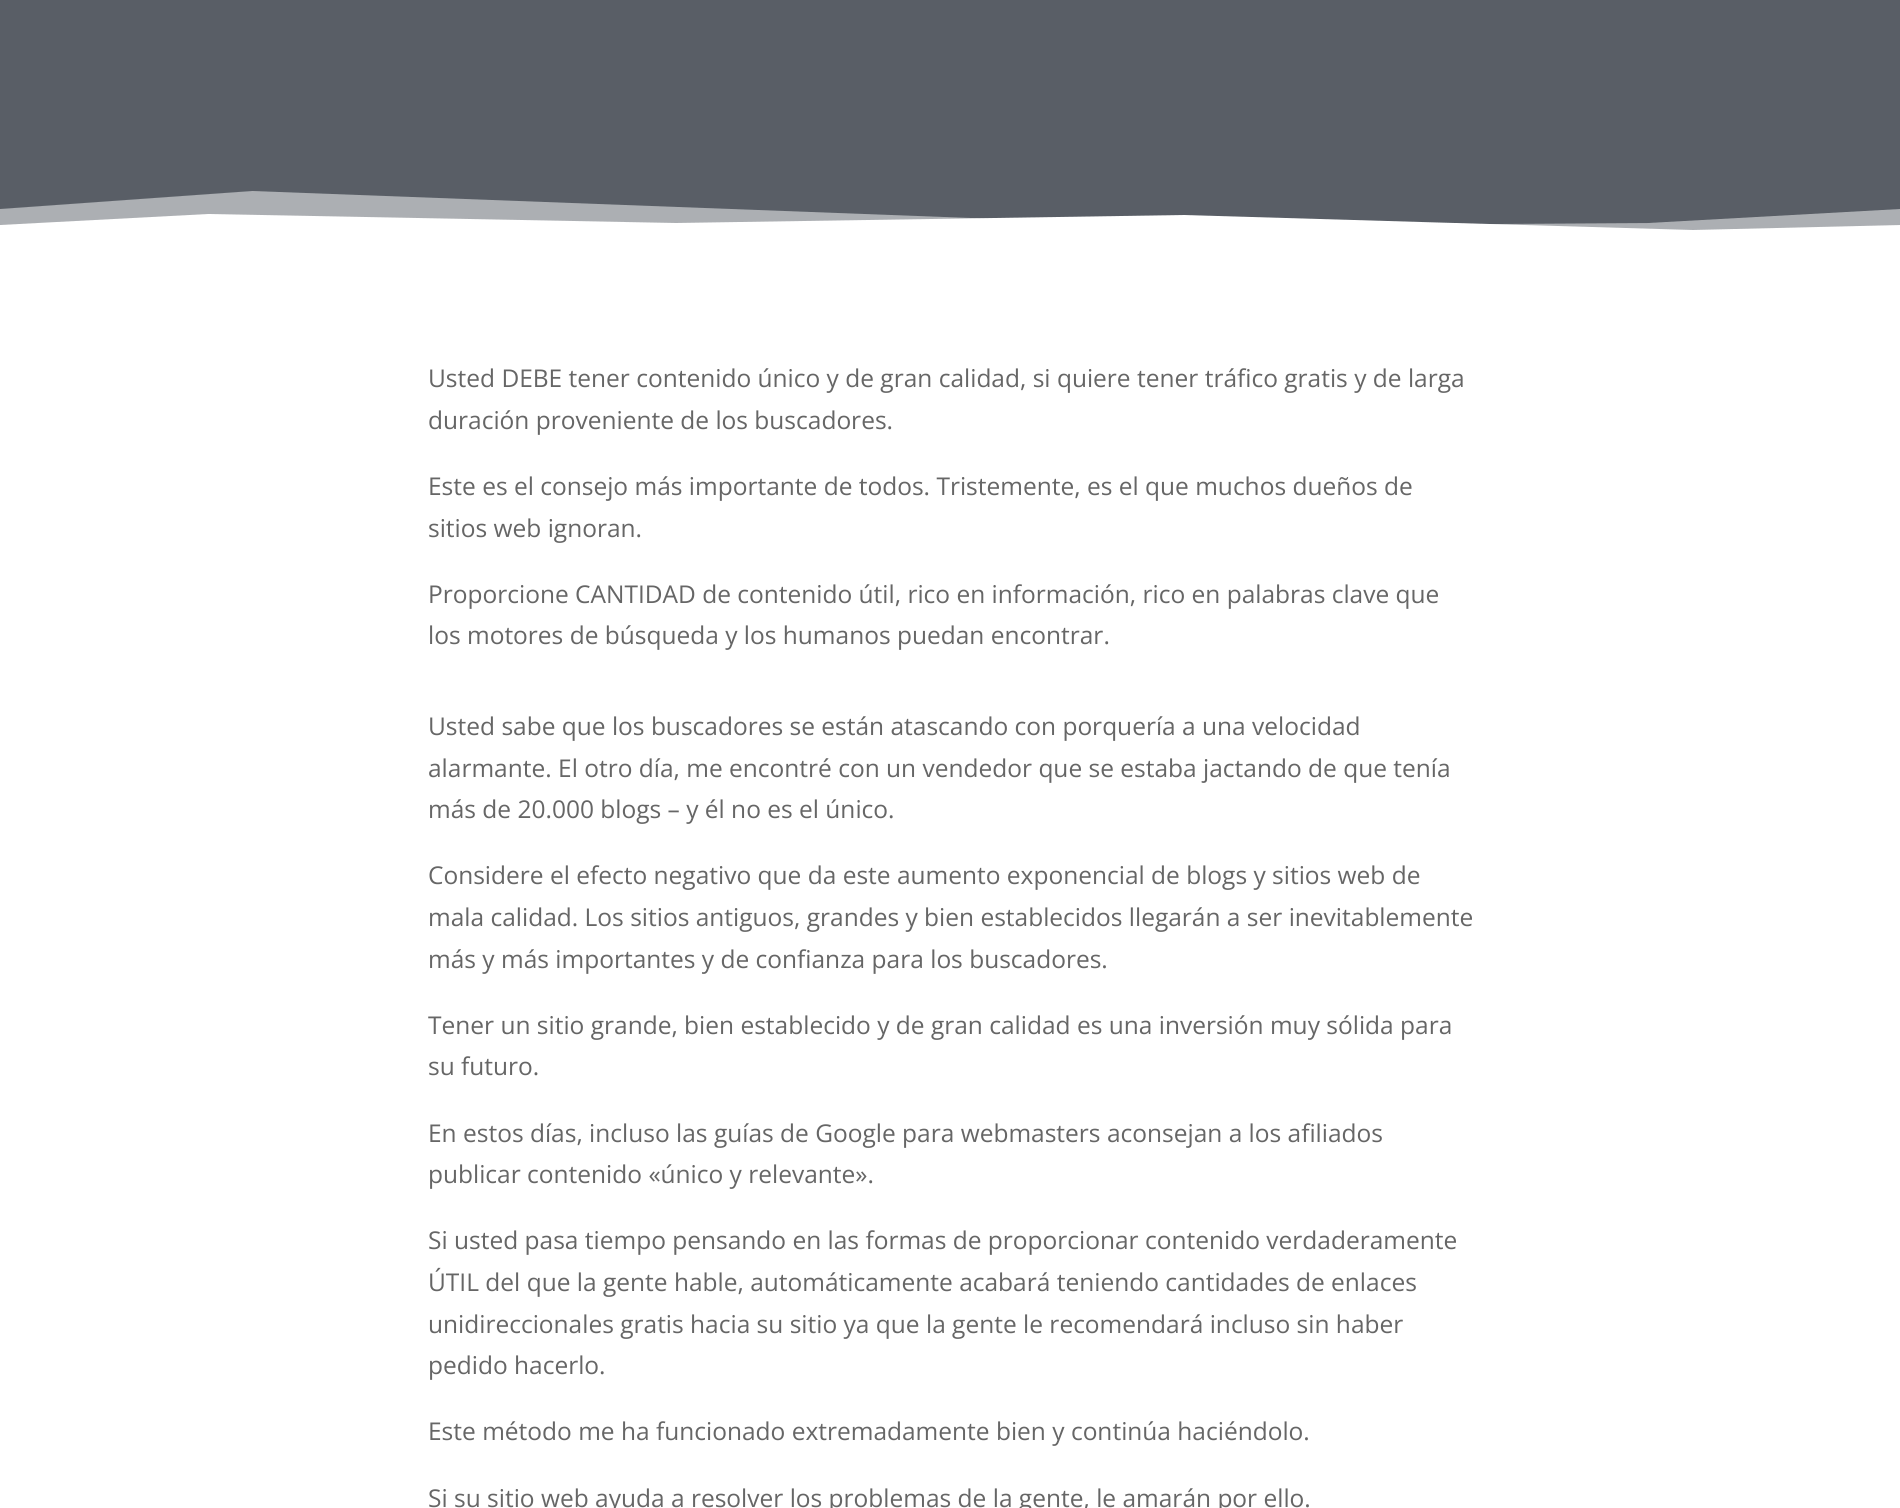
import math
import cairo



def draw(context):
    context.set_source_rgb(1, 1, 1)
    context.paint()
    context.set_source_rgb(89 / 255, 94 / 255, 102 / 255)
    context.rectangle(0, 0, 1900, 225)
    context.fill()
    context.set_source_rgb(172 / 255, 175 / 255, 179 / 255)
    context.new_path()
    context.move_to(0, 209)
    context.line_to(252, 191)
    context.line_to(1183, 226)
    context.line_to(1648, 223)
    context.line_to(1900, 209)
    context.line_to(1900, 243)
    context.line_to(0, 243)
    context.close_path()
    context.fill()
    context.set_source_rgb(1, 1, 1)
    context.new_path()
    context.move_to(0, 225)
    context.line_to(208, 214)
    context.line_to(676, 223)
    context.line_to(1183, 215)
    context.line_to(1693, 230)
    context.line_to(1900, 225)
    context.line_to(1900, 243)
    context.line_to(0, 243)
    context.close_path()
    context.fill()
    context.select_font_face("Open Sans")
    context.set_font_size(24.5)
    context.set_source_rgb(102 / 255, 102 / 255, 102 / 255)
    context.move_to(428, 387)
    context.show_text("Usted DEBE tener contenido único y de gran calidad, si quiere tener tráfico gratis y de larga")
    context.move_to(428, 429)
    context.show_text("duración proveniente de los buscadores.")
    context.move_to(428, 495)
    context.show_text("Este es el consejo más importante de todos. Tristemente, es el que muchos dueños de")
    context.move_to(428, 537)
    context.show_text("sitios web ignoran.")
    context.move_to(428, 603)
    context.show_text("Proporcione CANTIDAD de contenido útil, rico en información, rico en palabras clave que")
    context.move_to(428, 644)
    context.show_text("los motores de búsqueda y los humanos puedan encontrar.")
    context.move_to(428, 735)
    context.show_text("Usted sabe que los buscadores se están atascando con porquería a una velocidad")
    context.move_to(428, 777)
    context.show_text("alarmante. El otro día, me encontré con un vendedor que se estaba jactando de que tenía")
    context.move_to(428, 818)
    context.show_text("más de 20.000 blogs – y él no es el único.")
    context.move_to(428, 884)
    context.show_text("Considere el efecto negativo que da este aumento exponencial de blogs y sitios web de")
    context.move_to(428, 926)
    context.show_text("mala calidad. Los sitios antiguos, grandes y bien establecidos llegarán a ser inevitablemente")
    context.move_to(428, 968)
    context.show_text("más y más importantes y de confianza para los buscadores.")
    context.move_to(428, 1034)
    context.show_text("Tener un sitio grande, bien establecido y de gran calidad es una inversión muy sólida para")
    context.move_to(428, 1075)
    context.show_text("su futuro.")
    context.move_to(428, 1142)
    context.show_text("En estos días, incluso las guías de Google para webmasters aconsejan a los afiliados")
    context.move_to(428, 1183)
    context.show_text("publicar contenido «único y relevante».")
    context.move_to(428, 1249)
    context.show_text("Si usted pasa tiempo pensando en las formas de proporcionar contenido verdaderamente")
    context.move_to(428, 1291)
    context.show_text("ÚTIL del que la gente hable, automáticamente acabará teniendo cantidades de enlaces")
    context.move_to(428, 1333)
    context.show_text("unidireccionales gratis hacia su sitio ya que la gente le recomendará incluso sin haber")
    context.move_to(428, 1374)
    context.show_text("pedido hacerlo.")
    context.move_to(428, 1440)
    context.show_text("Este método me ha funcionado extremadamente bien y continúa haciéndolo.")
    context.move_to(428, 1507)
    context.show_text("Si su sitio web ayuda a resolver los problemas de la gente, le amarán por ello.")


surface = cairo.ImageSurface(cairo.Format.RGB24, 1900, 1508)
context = cairo.Context(surface)
options = cairo.FontOptions()
options.set_hint_metrics(cairo.HintMetrics.OFF)
options.set_hint_style(cairo.HintStyle.NONE)
context.set_font_options(options)
context.set_miter_limit(4)
draw(context)
surface.write_to_png("out.png")
